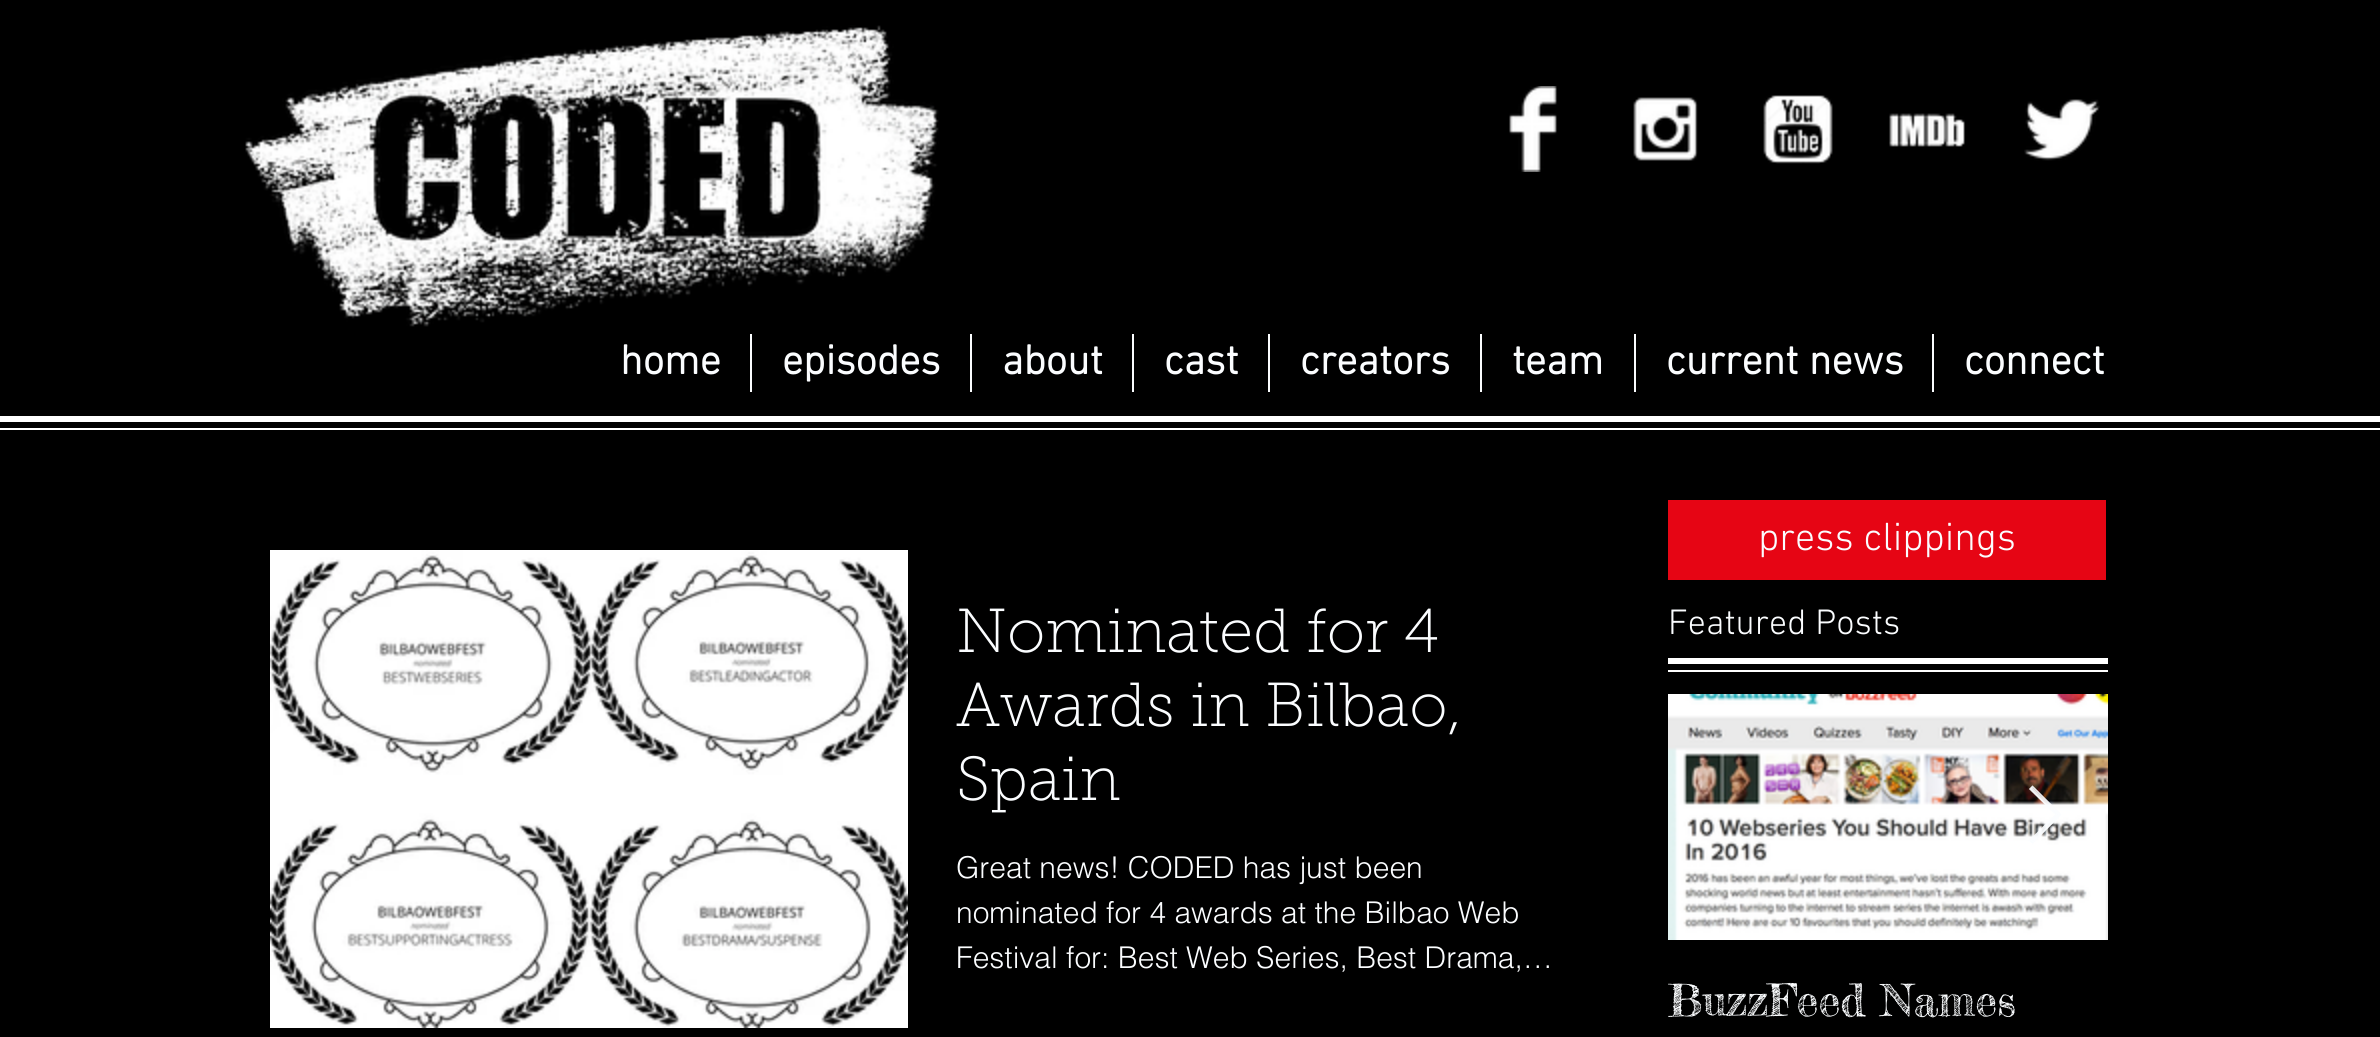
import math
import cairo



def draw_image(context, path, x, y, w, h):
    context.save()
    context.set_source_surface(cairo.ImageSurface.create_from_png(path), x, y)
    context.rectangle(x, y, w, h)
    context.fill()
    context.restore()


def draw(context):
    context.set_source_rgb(0, 0, 0)
    context.paint()
    draw_image(context, "images/1.png", 245, 25, 694, 302)
    draw_image(context, "images/2.png", 1509, 86, 48, 86)
    draw_image(context, "images/3.png", 1633, 97, 65, 64)
    draw_image(context, "images/4.png", 1763, 95, 70, 69)
    draw_image(context, "images/5.png", 1889, 113, 76, 34)
    draw_image(context, "images/6.png", 2024, 99, 76, 62)
    context.set_source_rgb(251 / 255, 253 / 255, 1)
    context.rectangle(750, 334, 2, 58)
    context.fill()
    context.rectangle(970, 334, 2, 58)
    context.fill()
    context.rectangle(1132, 334, 2, 58)
    context.fill()
    context.rectangle(1268, 334, 2, 58)
    context.fill()
    context.rectangle(1480, 334, 2, 58)
    context.fill()
    context.rectangle(1634, 334, 2, 58)
    context.fill()
    context.rectangle(1932, 334, 2, 58)
    context.fill()
    context.set_source_rgb(1, 1, 1)
    context.rectangle(0, 416, 2380, 6)
    context.fill()
    context.rectangle(0, 428, 2380, 2)
    context.fill()
    context.set_source_rgb(230 / 255, 5 / 255, 20 / 255)
    context.rectangle(1668, 500, 438, 80)
    context.fill()
    draw_image(context, "images/7.png", 270, 550, 638, 478)
    context.set_source_rgb(1, 1, 1)
    context.rectangle(1668, 658, 440, 6)
    context.fill()
    context.rectangle(1668, 670, 440, 2)
    context.fill()
    draw_image(context, "images/8.png", 1668, 694, 440, 246)
    context.set_source_rgba(251 / 255, 253 / 255, 1, 0.9)
    context.new_path()
    context.move_to(2030, 789)
    context.line_to(2032, 787)
    context.line_to(2061, 815)
    context.line_to(2032, 843)
    context.line_to(2030, 841)
    context.line_to(2056, 815)
    context.close_path()
    context.fill()
    context.new_path()
    context.move_to(2030, 789)
    context.line_to(2032.5, 786.5)
    context.line_to(2060.5, 814.5)
    context.line_to(2032.5, 843)
    context.line_to(2030, 840.5)
    context.line_to(2056, 814.5)
    context.close_path()
    context.set_line_width(1.6)
    context.stroke()
    context.select_font_face("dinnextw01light", cairo.FontSlant.NORMAL, cairo.FontWeight.BOLD)
    context.set_font_size(42)
    context.set_source_rgb(251 / 255, 253 / 255, 1)
    context.move_to(620, 374)
    context.show_text("home")
    context.move_to(782, 374)
    context.show_text("episodes")
    context.move_to(1002, 374)
    context.show_text("about")
    context.move_to(1164, 374)
    context.show_text("cast")
    context.move_to(1300, 374)
    context.show_text("creators")
    context.move_to(1512, 374)
    context.show_text("team")
    context.move_to(1666, 374)
    context.show_text("current news")
    context.move_to(1964, 374)
    context.show_text("connect")
    context.select_font_face("dinnextw01light Light")
    context.set_font_size(40)
    context.move_to(1758, 550)
    context.show_text("press clippings")
    context.select_font_face("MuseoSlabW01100 Thin")
    context.set_font_size(62)
    context.move_to(956, 652)
    context.show_text("Nominated for 4")
    context.move_to(956, 726)
    context.show_text("Awards in Bilbao,")
    context.move_to(956, 800)
    context.show_text("Spain")
    context.select_font_face("helvetica Light")
    context.set_font_size(30)
    context.move_to(956, 878)
    context.show_text("Great news! CODED has just been")
    context.move_to(956, 923)
    context.show_text("nominated for 4 awards at the Bilbao Web")
    context.move_to(956, 968)
    context.show_text("Festival for: Best Web Series, Best Drama,…")
    context.select_font_face("dinnextw01light Light")
    context.set_font_size(36)
    context.move_to(1668, 634)
    context.show_text("Featured Posts")
    context.select_font_face("Fredericka the Great")
    context.set_font_size(44)
    context.move_to(1668, 1016)
    context.show_text("BuzzFeed Names")


surface = cairo.ImageSurface(cairo.Format.RGB24, 2380, 1037)
context = cairo.Context(surface)
options = cairo.FontOptions()
options.set_hint_metrics(cairo.HintMetrics.OFF)
options.set_hint_style(cairo.HintStyle.NONE)
context.set_font_options(options)
context.set_miter_limit(4)
draw(context)
surface.write_to_png("out.png")
